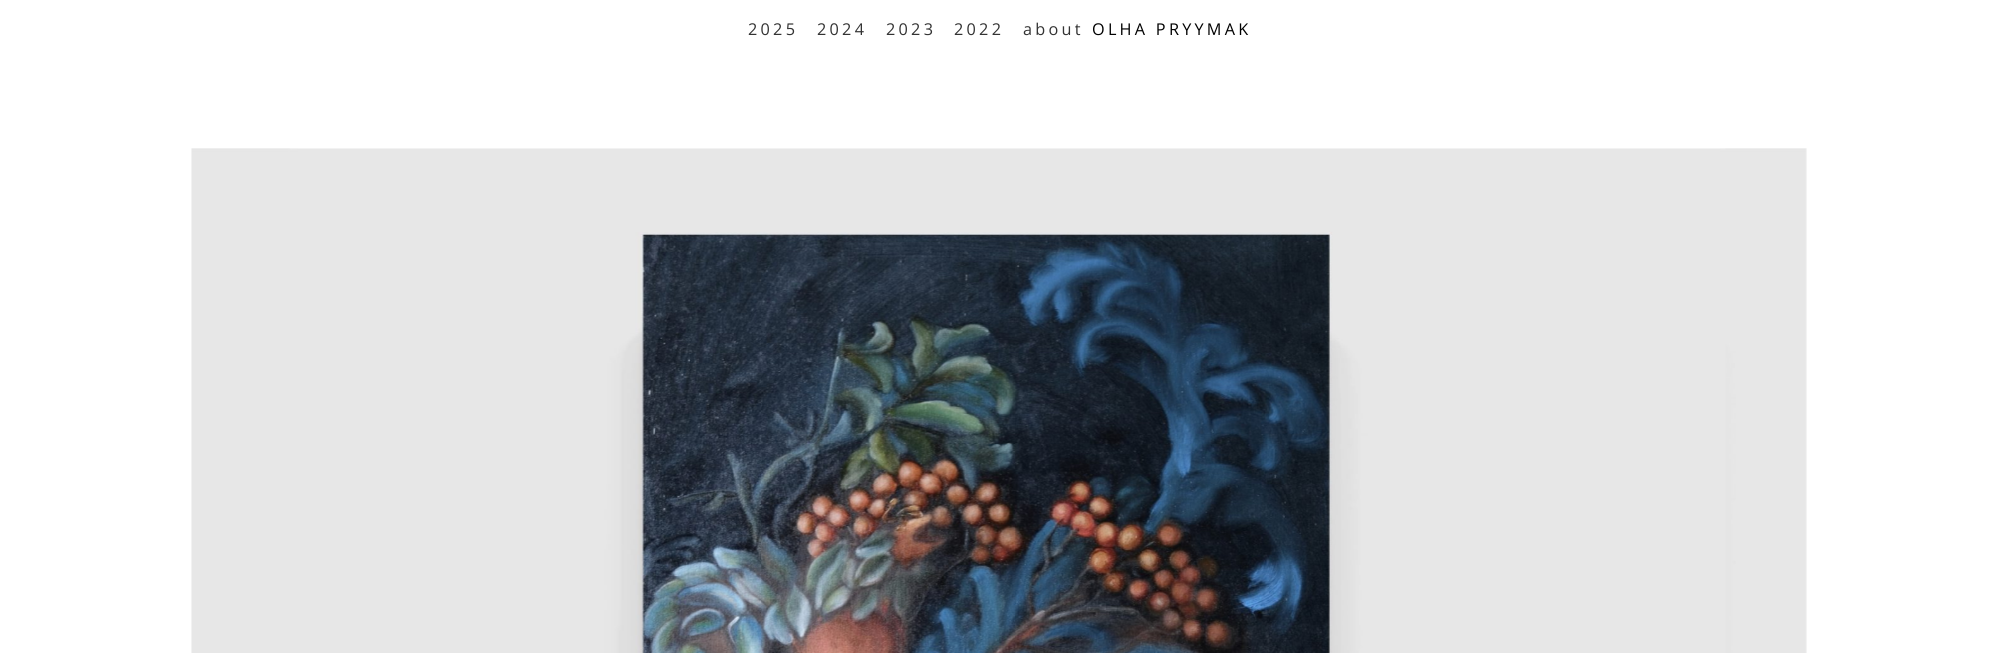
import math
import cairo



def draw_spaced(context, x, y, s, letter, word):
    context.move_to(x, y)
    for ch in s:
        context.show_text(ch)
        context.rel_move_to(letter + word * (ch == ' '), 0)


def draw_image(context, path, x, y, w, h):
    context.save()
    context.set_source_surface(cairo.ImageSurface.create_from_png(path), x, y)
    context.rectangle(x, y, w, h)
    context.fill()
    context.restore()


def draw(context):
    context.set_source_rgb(1, 1, 1)
    context.paint()
    draw_image(context, "images/1.png", 191, 148, 1616, 505)
    context.select_font_face("Open Sans")
    context.set_font_size(16.25)
    context.set_source_rgb(51 / 255, 51 / 255, 51 / 255)
    draw_spaced(context, 748, 35, "2025", 3.25, 0)
    draw_spaced(context, 817, 35, "2024", 3.25, 0)
    draw_spaced(context, 886, 35, "2023", 3.25, 0)
    draw_spaced(context, 954, 35, "2022", 3.25, 0)
    draw_spaced(context, 1023, 35, "about", 3.25, 0)
    context.set_source_rgb(1 / 255, 1 / 255, 1 / 255)
    draw_spaced(context, 1092, 35, "OLHA PRYYMAK", 3.25, 0)


surface = cairo.ImageSurface(cairo.Format.RGB24, 1998, 653)
context = cairo.Context(surface)
options = cairo.FontOptions()
options.set_hint_metrics(cairo.HintMetrics.OFF)
options.set_hint_style(cairo.HintStyle.NONE)
context.set_font_options(options)
context.set_miter_limit(4)
draw(context)
surface.write_to_png("out.png")
